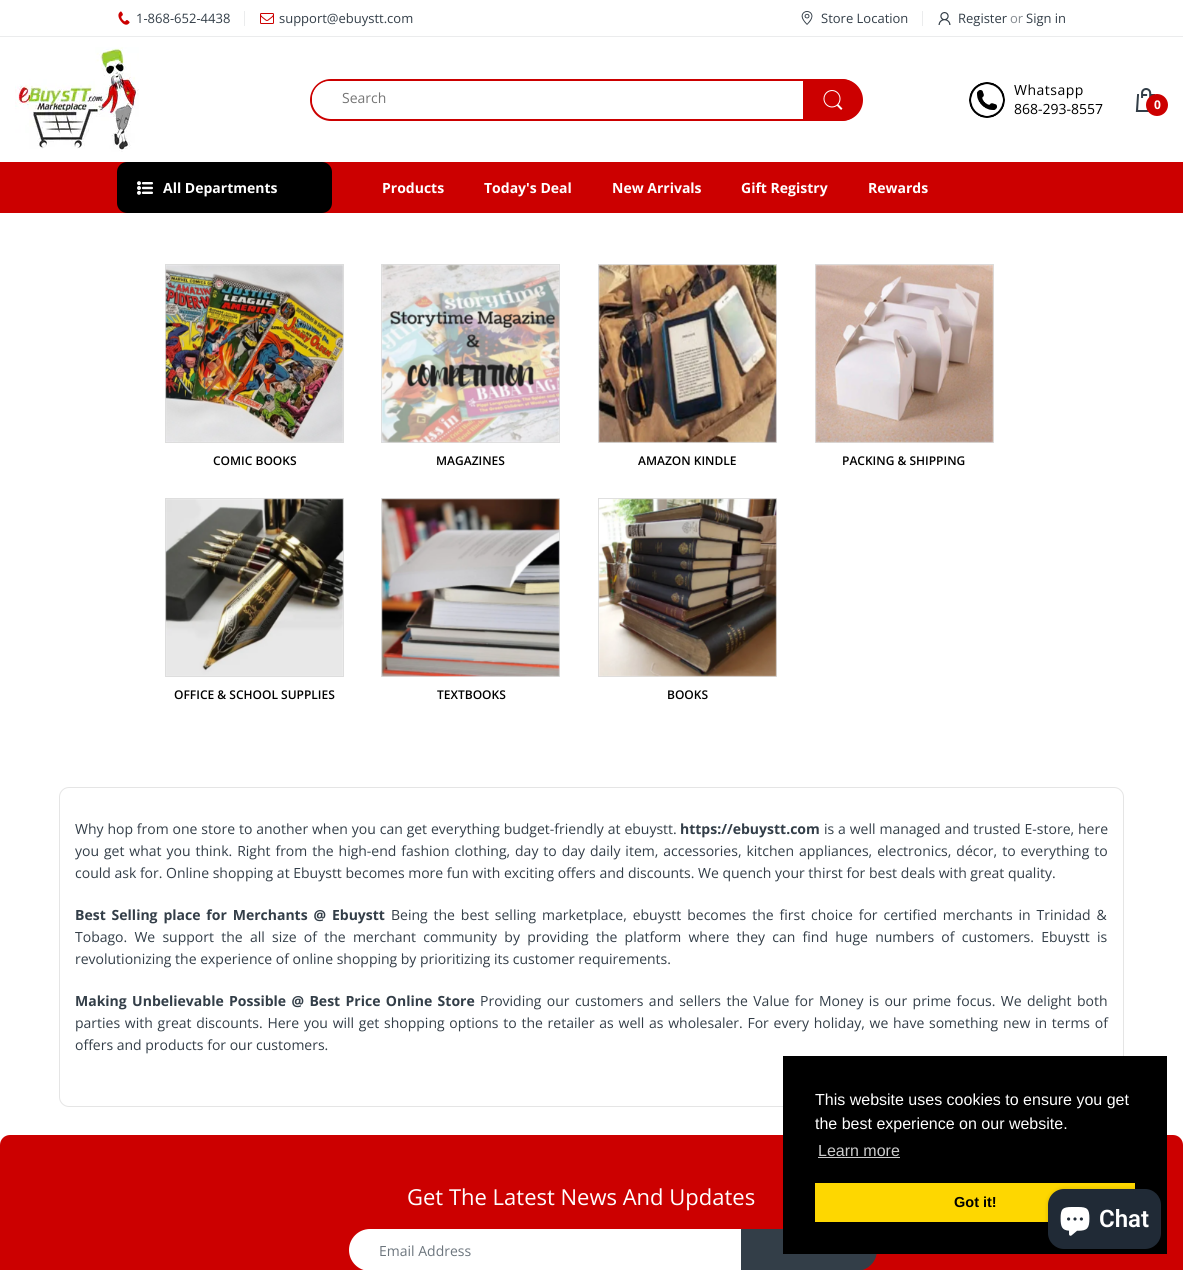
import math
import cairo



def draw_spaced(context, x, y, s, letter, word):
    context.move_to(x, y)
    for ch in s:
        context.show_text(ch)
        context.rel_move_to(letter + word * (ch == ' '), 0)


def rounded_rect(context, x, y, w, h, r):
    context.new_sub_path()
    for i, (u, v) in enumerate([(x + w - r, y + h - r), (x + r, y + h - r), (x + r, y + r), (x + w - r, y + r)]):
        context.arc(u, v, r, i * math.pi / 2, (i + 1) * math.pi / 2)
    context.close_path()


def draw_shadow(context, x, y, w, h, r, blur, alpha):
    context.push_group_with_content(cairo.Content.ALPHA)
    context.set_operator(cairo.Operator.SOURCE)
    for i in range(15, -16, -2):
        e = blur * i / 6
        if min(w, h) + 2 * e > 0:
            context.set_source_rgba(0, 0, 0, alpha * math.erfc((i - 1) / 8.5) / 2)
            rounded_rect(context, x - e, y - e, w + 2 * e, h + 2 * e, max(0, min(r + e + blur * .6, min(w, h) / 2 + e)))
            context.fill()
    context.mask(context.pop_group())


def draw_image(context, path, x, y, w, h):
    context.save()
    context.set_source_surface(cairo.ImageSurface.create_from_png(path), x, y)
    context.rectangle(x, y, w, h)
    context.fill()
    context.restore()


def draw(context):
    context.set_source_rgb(1, 1, 1)
    context.paint()
    context.set_source_rgb(235 / 255, 236 / 255, 237 / 255)
    context.rectangle(0, 36, 1183, 1)
    context.fill()
    draw_image(context, "images/1.png", 118, 11, 12, 14)
    context.rectangle(244, 11, 1, 15)
    context.fill()
    draw_image(context, "images/2.png", 260, 13, 14, 11)
    draw_image(context, "images/3.png", 801, 11, 12, 14)
    context.rectangle(922, 11, 1, 15)
    context.fill()
    draw_image(context, "images/4.png", 938, 12, 13, 13)
    draw_image(context, "images/5.png", 15, 47, 124, 105)
    rounded_rect(context, 311, 80, 550, 40, 20)
    context.set_source_rgb(204 / 255, 0, 0)
    context.stroke()
    context.set_source_rgb(1, 1, 1)
    rounded_rect(context, 312, 81, 499, 36, 18)
    context.fill()
    context.set_source_rgb(204 / 255, 0, 0)
    context.new_path()
    context.move_to(803, 79)
    context.line_to(842, 79)
    context.curve_to(853.5, 79, 863, 88.5, 863, 100)
    context.curve_to(863, 111.5, 853.5, 121, 842, 121)
    context.line_to(803, 121)
    context.close_path()
    context.fill()
    draw_image(context, "images/6.png", 823, 90, 20, 20)
    draw_image(context, "images/7.png", 969, 82, 36, 36)
    draw_image(context, "images/8.png", 1135, 88, 21, 24)
    context.arc(1157, 105, 11, 0, 2 * math.pi)
    context.fill()
    context.rectangle(0, 162, 1183, 51)
    context.fill()
    context.set_source_rgb(0, 0, 0)
    rounded_rect(context, 117, 162, 215, 51, 10)
    context.fill()
    draw_image(context, "images/9.png", 137, 181, 16, 14)
    context.rectangle(165.5, 264.5, 178, 178)
    context.set_source_rgb(221 / 255, 221 / 255, 221 / 255)
    context.set_line_width(1)
    context.stroke()
    draw_image(context, "images/10.png", 165, 265, 179, 177)
    context.rectangle(381.5, 264.5, 178, 178)
    context.stroke()
    draw_image(context, "images/11.png", 381, 264, 179, 179)
    context.rectangle(598.5, 264.5, 178, 178)
    context.stroke()
    draw_image(context, "images/12.png", 598, 264, 179, 179)
    context.rectangle(815.5, 264.5, 178, 178)
    context.stroke()
    draw_image(context, "images/13.png", 815, 264, 179, 179)
    context.rectangle(165.5, 498.5, 178, 178)
    context.stroke()
    draw_image(context, "images/14.png", 165, 498, 179, 178)
    context.rectangle(381.5, 498.5, 178, 178)
    context.stroke()
    draw_image(context, "images/15.png", 381, 498, 179, 179)
    context.rectangle(598.5, 498.5, 178, 178)
    context.stroke()
    draw_image(context, "images/16.png", 598, 498, 179, 179)
    rounded_rect(context, 59.5, 787.5, 1064, 319, 9.5)
    context.set_source_rgb(229 / 255, 229 / 255, 229 / 255)
    context.stroke()
    context.set_source_rgb(204 / 255, 0, 0)
    rounded_rect(context, 0, 1135, 1183, 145, 10)
    context.fill()
    context.set_source_rgb(1, 1, 1)
    rounded_rect(context, 349, 1229, 485, 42, 21)
    context.fill()
    context.set_source_rgb(51 / 255, 62 / 255, 72 / 255)
    context.new_path()
    context.move_to(741.5, 1229.5)
    context.line_to(856, 1229.5)
    context.curve_to(867.5, 1229.5, 876.5, 1238.5, 876.5, 1250)
    context.curve_to(876.5, 1261.5, 867.5, 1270.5, 856, 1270.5)
    context.line_to(741.5, 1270.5)
    context.close_path()
    context.fill_preserve()
    context.stroke()
    context.set_source_rgb(0, 0, 0)
    context.rectangle(783, 1056, 384, 198)
    context.fill()
    context.set_source_rgb(204 / 255, 204 / 255, 204 / 255)
    context.rectangle(818, 1157, 82, 1)
    context.fill()
    context.set_source_rgb(254 / 255, 215 / 255, 0)
    context.rectangle(815, 1183, 320, 39)
    context.fill()
    context.set_source_rgb(0, 0, 0)
    draw_shadow(context, 1048, 1189, 113, 60, 16, 2.5, 0.15)
    context.set_source_rgb(32 / 255, 42 / 255, 54 / 255)
    rounded_rect(context, 1048, 1189, 113, 60, 16)
    context.fill()
    draw_image(context, "images/17.png", 1060, 1207, 30, 29)
    context.select_font_face("Open Sans")
    context.set_font_size(13)
    context.set_source_rgb(51 / 255, 62 / 255, 72 / 255)
    context.move_to(136, 23)
    context.show_text("1-868-652-4438")
    context.move_to(279, 23)
    context.show_text("support@ebuystt.com")
    context.move_to(821, 23)
    context.show_text("Store Location")
    context.move_to(958, 23)
    context.show_text("Register")
    context.set_source_rgb(133 / 255, 139 / 255, 145 / 255)
    context.move_to(1010, 23)
    context.show_text("or")
    context.set_source_rgb(51 / 255, 62 / 255, 72 / 255)
    context.move_to(1026, 23)
    context.show_text("Sign in")
    context.set_font_size(14)
    context.set_source_rgb(117 / 255, 117 / 255, 117 / 255)
    context.move_to(342, 103)
    context.show_text("Search")
    context.set_source_rgb(0, 0, 0)
    draw_spaced(context, 1014, 95, "Whatsapp", 0.5, 0)
    context.move_to(1014, 114)
    context.show_text("868-293-8557")
    context.select_font_face("Open Sans", cairo.FontSlant.NORMAL, cairo.FontWeight.BOLD)
    context.set_font_size(12)
    context.set_source_rgb(1, 1, 1)
    context.move_to(1154, 109)
    context.show_text("0")
    context.set_font_size(14)
    context.move_to(163, 193)
    context.show_text("All Departments")
    context.move_to(382, 193)
    context.show_text("Products")
    context.move_to(484, 193)
    context.show_text("Today's Deal")
    context.move_to(612, 193)
    context.show_text("New Arrivals")
    context.move_to(741, 193)
    context.show_text("Gift Registry")
    context.move_to(868, 193)
    context.show_text("Rewards")
    context.select_font_face("Open Sans SemiBold")
    context.set_font_size(12)
    context.set_source_rgb(0, 0, 0)
    context.move_to(213, 465)
    context.show_text("COMIC BOOKS")
    context.move_to(436, 465)
    context.show_text("MAGAZINES")
    context.move_to(638, 465)
    context.show_text("AMAZON KINDLE")
    context.move_to(842, 465)
    context.show_text("PACKING & SHIPPING")
    context.move_to(174, 699)
    context.show_text("OFFICE & SCHOOL SUPPLIES")
    context.move_to(437, 699)
    context.show_text("TEXTBOOKS")
    context.move_to(667, 699)
    context.show_text("BOOKS")
    context.select_font_face("Open Sans")
    context.set_font_size(14)
    context.set_source_rgb(51 / 255, 62 / 255, 72 / 255)
    draw_spaced(context, 75, 834, "Why hop from one store to another when you can get everything budget-friendly at ebuystt.", 0, 0.25)
    context.select_font_face("Open Sans", cairo.FontSlant.NORMAL, cairo.FontWeight.BOLD)
    context.move_to(680, 834)
    context.show_text("https://ebuystt.com")
    context.select_font_face("Open Sans")
    draw_spaced(context, 824, 834, "is a well managed and trusted E-store, here", 0, 0.25)
    draw_spaced(context, 75, 856, "you get what you think. Right from the high-end fashion clothing, day to day daily item, accessories, kitchen appliances, electronics, décor, to everything to", 0, 1.3)
    context.move_to(75, 878)
    context.show_text("could ask for. Online shopping at Ebuystt becomes more fun with exciting offers and discounts. We quench your thirst for best deals with great quality.")
    context.select_font_face("Open Sans", cairo.FontSlant.NORMAL, cairo.FontWeight.BOLD)
    draw_spaced(context, 75, 920, "Best Selling place for Merchants @ Ebuystt", 0, 2.25)
    context.select_font_face("Open Sans")
    draw_spaced(context, 391, 920, "Being the best selling marketplace, ebuystt becomes the first choice for certified merchants in Trinidad &", 0, 2.25)
    draw_spaced(context, 75, 942, "Tobago. We support the all size of the merchant community by providing the platform where they can find huge numbers of customers. Ebuystt is", 0, 3.6)
    context.move_to(75, 964)
    context.show_text("revolutionizing the experience of online shopping by prioritizing its customer requirements.")
    context.select_font_face("Open Sans", cairo.FontSlant.NORMAL, cairo.FontWeight.BOLD)
    draw_spaced(context, 75, 1006, "Making Unbelievable Possible @ Best Price Online Store", 0, 1.75)
    context.select_font_face("Open Sans")
    draw_spaced(context, 480, 1006, "Providing our customers and sellers the Value for Money is our prime focus. We delight both", 0, 1.75)
    draw_spaced(context, 75, 1028, "parties with great discounts. Here you will get shopping options to the retailer as well as wholesaler. For every holiday, we have something new in terms of", 0, 1.1)
    context.move_to(75, 1050)
    context.show_text("offers and products for our customers.")
    context.set_font_size(22)
    context.set_source_rgb(1, 1, 1)
    context.move_to(407, 1205)
    context.show_text("Get The Latest News And Updates")
    context.set_font_size(14)
    context.set_source_rgb(108 / 255, 117 / 255, 125 / 255)
    context.move_to(379, 1256)
    context.show_text("Email Address")
    context.select_font_face("Liberation Sans")
    context.set_font_size(16)
    context.set_source_rgb(1, 1, 1)
    context.move_to(815, 1105)
    context.show_text("This website uses cookies to ensure you get")
    context.move_to(815, 1129)
    context.show_text("the best experience on our website.")
    context.set_source_rgb(204 / 255, 204 / 255, 204 / 255)
    context.move_to(818, 1156)
    context.show_text("Learn more")
    context.select_font_face("Liberation Sans", cairo.FontSlant.NORMAL, cairo.FontWeight.BOLD)
    context.set_font_size(14.5)
    context.set_source_rgb(0, 0, 0)
    context.move_to(954, 1207)
    context.show_text("Got it!")
    context.select_font_face("Roboto SemiBold")
    context.set_font_size(24)
    context.set_source_rgb(1, 1, 1)
    context.move_to(1099, 1227)
    context.show_text("Chat")


surface = cairo.ImageSurface(cairo.Format.RGB24, 1183, 1270)
context = cairo.Context(surface)
options = cairo.FontOptions()
options.set_hint_metrics(cairo.HintMetrics.OFF)
options.set_hint_style(cairo.HintStyle.NONE)
context.set_font_options(options)
context.set_miter_limit(4)
draw(context)
surface.write_to_png("out.png")
